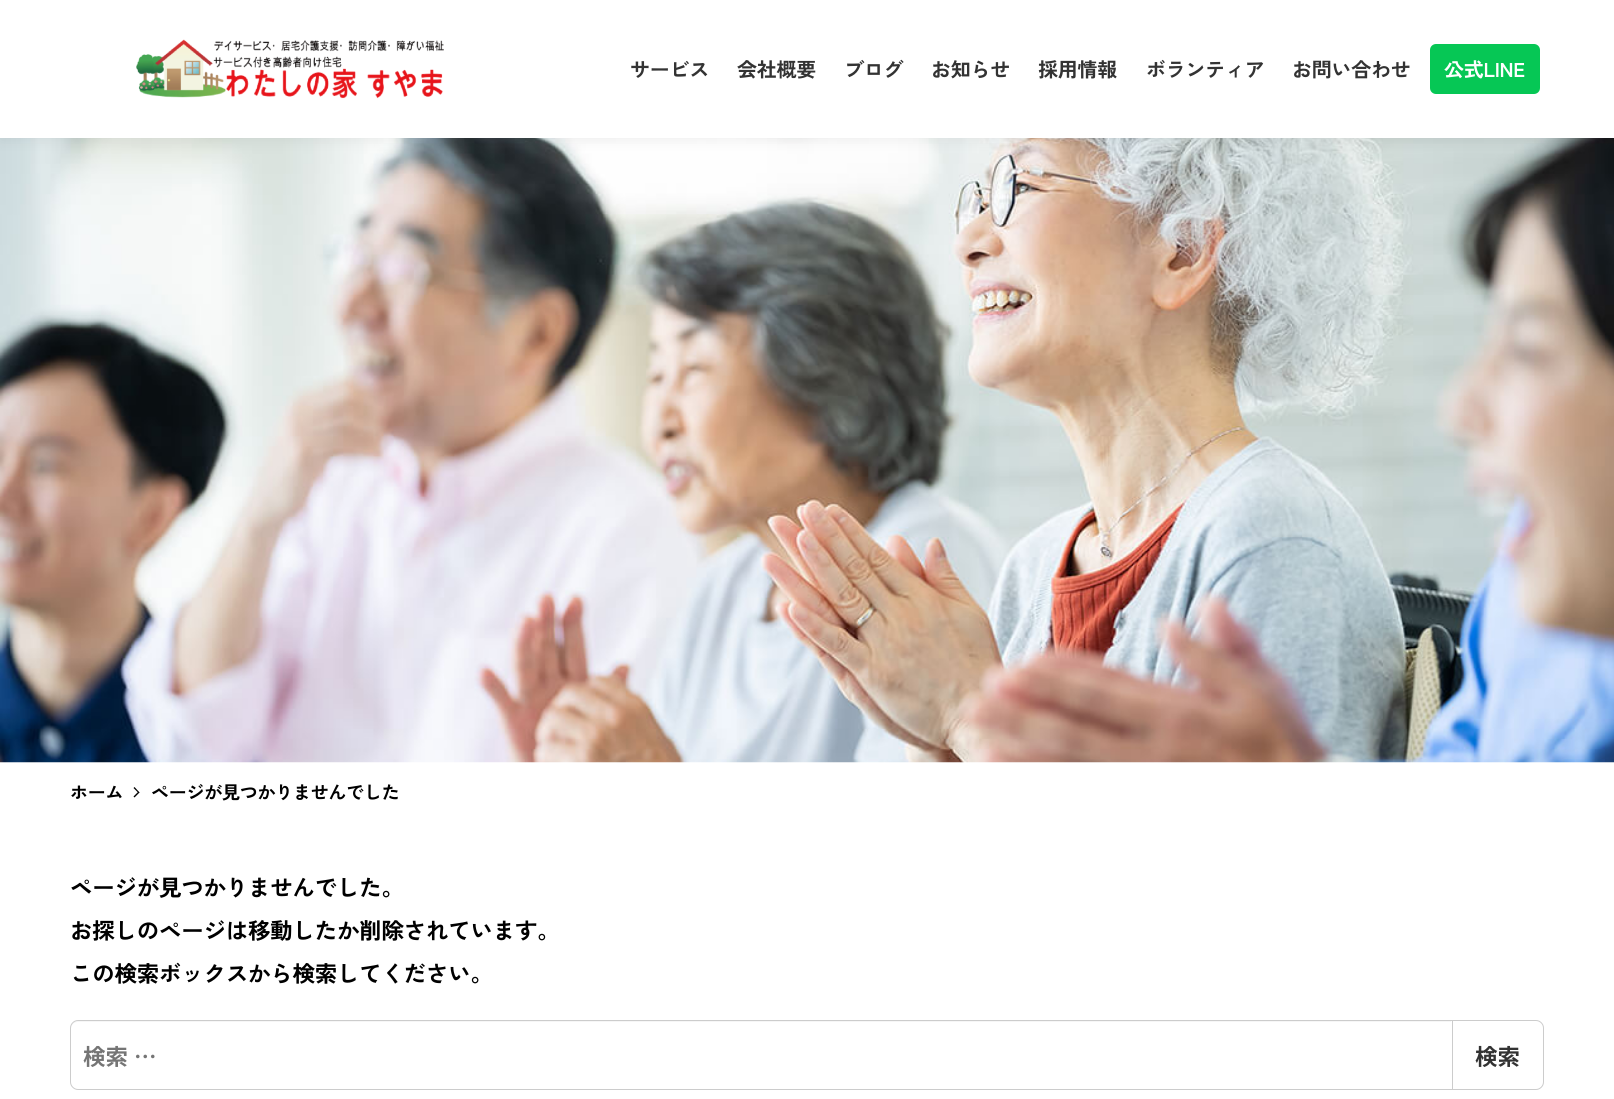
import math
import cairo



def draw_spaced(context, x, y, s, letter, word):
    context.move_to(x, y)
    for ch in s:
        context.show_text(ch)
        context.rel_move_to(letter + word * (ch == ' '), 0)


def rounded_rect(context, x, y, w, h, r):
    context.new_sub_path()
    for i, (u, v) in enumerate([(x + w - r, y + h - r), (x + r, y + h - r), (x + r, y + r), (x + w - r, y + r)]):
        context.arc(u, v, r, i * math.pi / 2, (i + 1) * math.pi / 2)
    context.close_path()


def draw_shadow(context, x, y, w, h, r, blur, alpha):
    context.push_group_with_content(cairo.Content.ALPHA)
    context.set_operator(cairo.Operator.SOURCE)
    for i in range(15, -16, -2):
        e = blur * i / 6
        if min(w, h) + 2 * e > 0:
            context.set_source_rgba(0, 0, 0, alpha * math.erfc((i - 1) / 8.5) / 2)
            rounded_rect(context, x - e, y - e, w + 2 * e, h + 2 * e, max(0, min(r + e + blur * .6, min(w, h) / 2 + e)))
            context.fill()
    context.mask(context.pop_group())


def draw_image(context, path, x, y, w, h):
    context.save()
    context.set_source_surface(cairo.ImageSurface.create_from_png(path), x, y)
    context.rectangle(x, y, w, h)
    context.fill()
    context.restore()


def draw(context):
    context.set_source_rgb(1, 1, 1)
    context.paint()
    draw_image(context, "images/2.png", 0, 138, 1614, 625)
    context.set_source_rgb(0, 0, 0)
    draw_shadow(context, 0, 3, 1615, 137, 0, 7.5, 0.06)
    context.set_source_rgb(1, 1, 1)
    context.rectangle(0, 0, 1614, 138)
    context.fill()
    draw_image(context, "images/1.png", 136, 39, 308, 60)
    context.set_source_rgb(6 / 255, 199 / 255, 85 / 255)
    rounded_rect(context, 1430, 44, 110, 50, 6)
    context.fill()
    context.set_source_rgb(0, 0, 0)
    context.new_path()
    context.move_to(134.5, 787)
    context.line_to(139.5, 792.5)
    context.line_to(138.5, 793)
    context.line_to(133.5, 788)
    context.close_path()
    context.fill()
    context.new_path()
    context.move_to(138.5, 791.5)
    context.line_to(139.5, 792.5)
    context.line_to(134.5, 797.5)
    context.line_to(133.5, 796.5)
    context.close_path()
    context.fill()
    context.new_path()
    context.move_to(1451.5, 1020.5)
    context.line_to(1536, 1020.5)
    context.curve_to(1540, 1020.5, 1543.5, 1024, 1543.5, 1028)
    context.line_to(1543.5, 1082)
    context.curve_to(1543.5, 1086, 1540, 1089.5, 1536, 1089.5)
    context.line_to(1451.5, 1089.5)
    context.close_path()
    context.set_source_rgb(204 / 255, 204 / 255, 204 / 255)
    context.set_line_width(1)
    context.stroke()
    context.set_source_rgb(1, 1, 1)
    context.new_path()
    context.move_to(78, 1020)
    context.line_to(1453, 1020)
    context.line_to(1453, 1090)
    context.line_to(78, 1090)
    context.curve_to(73.5, 1090, 70, 1086.5, 70, 1082)
    context.line_to(70, 1028)
    context.curve_to(70, 1023.5, 73.5, 1020, 78, 1020)
    context.close_path()
    context.fill()
    context.set_source_rgb(246 / 255, 246 / 255, 246 / 255)
    context.new_path()
    context.move_to(78, 1022)
    context.line_to(1451, 1022)
    context.line_to(1451, 1021)
    context.line_to(77, 1021)
    context.curve_to(74, 1021, 71, 1024, 71, 1027)
    context.line_to(71, 1029)
    context.curve_to(71, 1025, 74, 1022, 78, 1022)
    context.close_path()
    context.fill()
    context.new_path()
    context.move_to(78, 1020.5)
    context.line_to(1452.5, 1020.5)
    context.line_to(1452.5, 1089.5)
    context.line_to(78, 1089.5)
    context.curve_to(74, 1089.5, 70.5, 1086, 70.5, 1082)
    context.line_to(70.5, 1028)
    context.curve_to(70.5, 1024, 74, 1020.5, 78, 1020.5)
    context.close_path()
    context.set_source_rgb(204 / 255, 204 / 255, 204 / 255)
    context.stroke()
    context.select_font_face("Zen Kaku Gothic New", cairo.FontSlant.NORMAL, cairo.FontWeight.BOLD)
    context.set_font_size(20)
    context.set_source_rgb(51 / 255, 51 / 255, 51 / 255)
    draw_spaced(context, 630, 77, "サービス", -0.25, 0)
    draw_spaced(context, 737, 77, "会社概要", -0.25, 0)
    draw_spaced(context, 844, 77, "ブログ", -0.25, 0)
    draw_spaced(context, 931, 77, "お知らせ", -0.25, 0)
    draw_spaced(context, 1038, 77, "採用情報", -0.25, 0)
    draw_spaced(context, 1146, 77, "ボランティア", -0.25, 0)
    draw_spaced(context, 1292, 77, "お問い合わせ", -0.25, 0)
    context.set_source_rgb(1, 1, 1)
    draw_spaced(context, 1444, 77, "公式LINE", -0.25, 0)
    context.set_font_size(18)
    context.set_source_rgb(0, 0, 0)
    draw_spaced(context, 70, 799, "ホーム", -0.25, 0)
    draw_spaced(context, 151, 799, "ページが見つかりませんでした", -0.25, 0)
    context.set_font_size(22.5)
    draw_spaced(context, 70, 896, "ページが見つかりませんでした。", -0.25, 0)
    draw_spaced(context, 70, 939, "お探しのページは移動したか削除されています。", -0.25, 0)
    draw_spaced(context, 70, 982, "この検索ボックスから検索してください。", -0.25, 0)
    context.select_font_face("Noto Sans JP", cairo.FontSlant.NORMAL, cairo.FontWeight.BOLD)
    context.set_source_rgb(117 / 255, 117 / 255, 117 / 255)
    context.move_to(83, 1065)
    context.show_text("検索")
    context.move_to(134, 1065)
    context.show_text("…")
    context.set_source_rgb(51 / 255, 51 / 255, 51 / 255)
    context.move_to(1475, 1065)
    context.show_text("検索")


surface = cairo.ImageSurface(cairo.Format.RGB24, 1614, 1099)
context = cairo.Context(surface)
options = cairo.FontOptions()
options.set_hint_metrics(cairo.HintMetrics.OFF)
options.set_hint_style(cairo.HintStyle.NONE)
context.set_font_options(options)
context.set_miter_limit(4)
draw(context)
surface.write_to_png("out.png")
